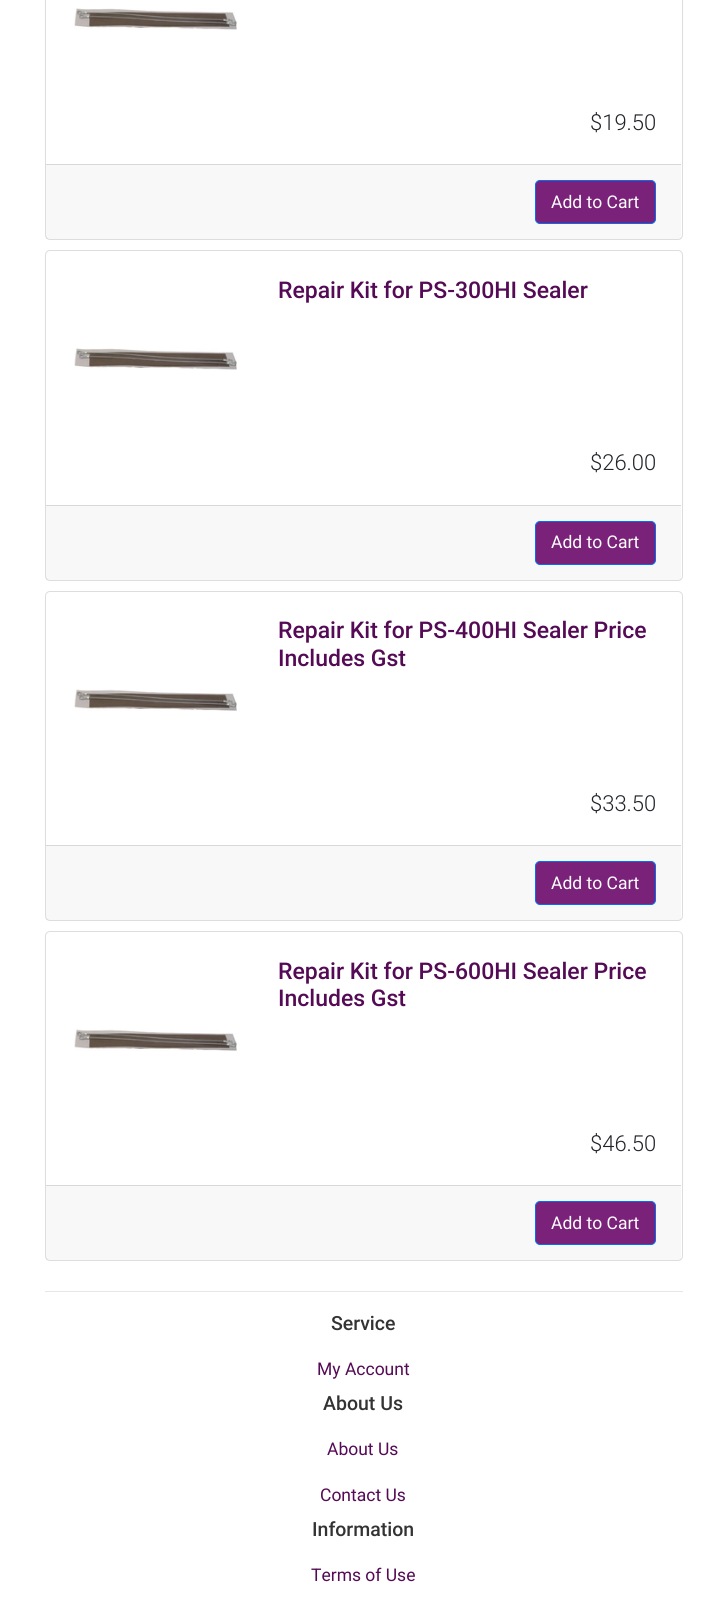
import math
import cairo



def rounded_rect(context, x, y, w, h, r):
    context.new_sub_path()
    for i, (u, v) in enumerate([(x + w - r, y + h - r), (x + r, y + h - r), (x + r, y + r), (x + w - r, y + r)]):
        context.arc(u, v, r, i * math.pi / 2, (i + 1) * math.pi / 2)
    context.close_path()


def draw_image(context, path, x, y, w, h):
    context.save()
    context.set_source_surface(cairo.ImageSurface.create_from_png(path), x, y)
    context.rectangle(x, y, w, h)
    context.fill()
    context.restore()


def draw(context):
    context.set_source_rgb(1, 1, 1)
    context.paint()
    rounded_rect(context, 45.5, -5.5, 637, 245, 4.5)
    context.set_source_rgb(221 / 255, 221 / 255, 221 / 255)
    context.set_line_width(1)
    context.stroke()
    draw_image(context, "images/1.png", 74, 8, 163, 22)
    context.set_source_rgba(0, 0, 0, 0.03)
    context.rectangle(46, 165, 635, 74)
    context.fill()
    context.set_source_rgb(216 / 255, 216 / 255, 216 / 255)
    context.rectangle(46, 164, 635, 1)
    context.fill()
    context.set_source_rgb(122 / 255, 34 / 255, 122 / 255)
    rounded_rect(context, 535.5, 180.5, 120, 43, 4.5)
    context.fill_preserve()
    context.set_source_rgb(0, 111 / 255, 245 / 255)
    context.stroke()
    rounded_rect(context, 45.5, 250.5, 637, 330, 4.5)
    context.set_source_rgb(221 / 255, 221 / 255, 221 / 255)
    context.stroke()
    draw_image(context, "images/2.png", 74, 348, 163, 22)
    context.set_source_rgba(0, 0, 0, 0.03)
    context.rectangle(46, 506, 635, 74)
    context.fill()
    context.set_source_rgb(216 / 255, 216 / 255, 216 / 255)
    context.rectangle(46, 505, 635, 1)
    context.fill()
    context.set_source_rgb(122 / 255, 34 / 255, 122 / 255)
    rounded_rect(context, 535.5, 521.5, 120, 43, 4.5)
    context.fill_preserve()
    context.set_source_rgb(0, 111 / 255, 245 / 255)
    context.stroke()
    rounded_rect(context, 45.5, 591.5, 637, 329, 4.5)
    context.set_source_rgb(221 / 255, 221 / 255, 221 / 255)
    context.stroke()
    draw_image(context, "images/3.png", 74, 689, 163, 22)
    context.set_source_rgba(0, 0, 0, 0.03)
    context.rectangle(46, 846, 635, 74)
    context.fill()
    context.set_source_rgb(216 / 255, 216 / 255, 216 / 255)
    context.rectangle(46, 845, 635, 1)
    context.fill()
    context.set_source_rgb(122 / 255, 34 / 255, 122 / 255)
    rounded_rect(context, 535.5, 861.5, 120, 43, 4.5)
    context.fill_preserve()
    context.set_source_rgb(0, 111 / 255, 245 / 255)
    context.stroke()
    rounded_rect(context, 45.5, 931.5, 637, 329, 4.5)
    context.set_source_rgb(221 / 255, 221 / 255, 221 / 255)
    context.stroke()
    draw_image(context, "images/4.png", 74, 1029, 163, 22)
    context.set_source_rgba(0, 0, 0, 0.03)
    context.rectangle(46, 1186, 635, 74)
    context.fill()
    context.set_source_rgb(216 / 255, 216 / 255, 216 / 255)
    context.rectangle(46, 1185, 635, 1)
    context.fill()
    context.set_source_rgb(122 / 255, 34 / 255, 122 / 255)
    rounded_rect(context, 535.5, 1201.5, 120, 43, 4.5)
    context.fill_preserve()
    context.set_source_rgb(0, 111 / 255, 245 / 255)
    context.stroke()
    context.set_source_rgb(230 / 255, 230 / 255, 230 / 255)
    context.rectangle(45, 1291, 638, 1)
    context.fill()
    context.select_font_face("Roboto Light")
    context.set_font_size(22)
    context.set_source_rgb(33 / 255, 37 / 255, 41 / 255)
    context.move_to(590, 130)
    context.show_text("$19.50")
    context.select_font_face("Roboto")
    context.set_font_size(17.5)
    context.set_source_rgb(1, 1, 1)
    context.move_to(551, 208)
    context.show_text("Add to Cart")
    context.select_font_face("Roboto Medium")
    context.set_font_size(23)
    context.set_source_rgb(84 / 255, 10 / 255, 84 / 255)
    context.move_to(278, 298)
    context.show_text("Repair Kit for PS-300HI Sealer")
    context.select_font_face("Roboto Light")
    context.set_font_size(22)
    context.set_source_rgb(33 / 255, 37 / 255, 41 / 255)
    context.move_to(590, 470)
    context.show_text("$26.00")
    context.select_font_face("Roboto")
    context.set_font_size(17.5)
    context.set_source_rgb(1, 1, 1)
    context.move_to(551, 548)
    context.show_text("Add to Cart")
    context.select_font_face("Roboto Medium")
    context.set_font_size(23)
    context.set_source_rgb(84 / 255, 10 / 255, 84 / 255)
    context.move_to(278, 638)
    context.show_text("Repair Kit for PS-400HI Sealer Price")
    context.move_to(278, 666)
    context.show_text("Includes Gst")
    context.select_font_face("Roboto Light")
    context.set_font_size(22)
    context.set_source_rgb(33 / 255, 37 / 255, 41 / 255)
    context.move_to(590, 811)
    context.show_text("$33.50")
    context.select_font_face("Roboto")
    context.set_font_size(17.5)
    context.set_source_rgb(1, 1, 1)
    context.move_to(551, 889)
    context.show_text("Add to Cart")
    context.select_font_face("Roboto Medium")
    context.set_font_size(23)
    context.set_source_rgb(84 / 255, 10 / 255, 84 / 255)
    context.move_to(278, 979)
    context.show_text("Repair Kit for PS-600HI Sealer Price")
    context.move_to(278, 1006)
    context.show_text("Includes Gst")
    context.select_font_face("Roboto Light")
    context.set_font_size(22)
    context.set_source_rgb(33 / 255, 37 / 255, 41 / 255)
    context.move_to(590, 1151)
    context.show_text("$46.50")
    context.select_font_face("Roboto")
    context.set_font_size(17.5)
    context.set_source_rgb(1, 1, 1)
    context.move_to(551, 1229)
    context.show_text("Add to Cart")
    context.select_font_face("Roboto Medium")
    context.set_font_size(19.5)
    context.set_source_rgb(51 / 255, 51 / 255, 51 / 255)
    context.move_to(331, 1330)
    context.show_text("Service")
    context.select_font_face("Roboto")
    context.set_font_size(17.5)
    context.set_source_rgb(84 / 255, 10 / 255, 84 / 255)
    context.move_to(317, 1375)
    context.show_text("My Account")
    context.select_font_face("Roboto Medium")
    context.set_font_size(19.5)
    context.set_source_rgb(51 / 255, 51 / 255, 51 / 255)
    context.move_to(323, 1410)
    context.show_text("About Us")
    context.select_font_face("Roboto")
    context.set_font_size(17.5)
    context.set_source_rgb(84 / 255, 10 / 255, 84 / 255)
    context.move_to(327, 1455)
    context.show_text("About Us")
    context.move_to(320, 1501)
    context.show_text("Contact Us")
    context.select_font_face("Roboto Medium")
    context.set_font_size(19.5)
    context.set_source_rgb(51 / 255, 51 / 255, 51 / 255)
    context.move_to(312, 1536)
    context.show_text("Information")
    context.select_font_face("Roboto")
    context.set_font_size(17.5)
    context.set_source_rgb(84 / 255, 10 / 255, 84 / 255)
    context.move_to(311, 1581)
    context.show_text("Terms of Use")


surface = cairo.ImageSurface(cairo.Format.RGB24, 726, 1608)
context = cairo.Context(surface)
options = cairo.FontOptions()
options.set_hint_metrics(cairo.HintMetrics.OFF)
options.set_hint_style(cairo.HintStyle.NONE)
context.set_font_options(options)
context.set_miter_limit(4)
draw(context)
surface.write_to_png("out.png")
